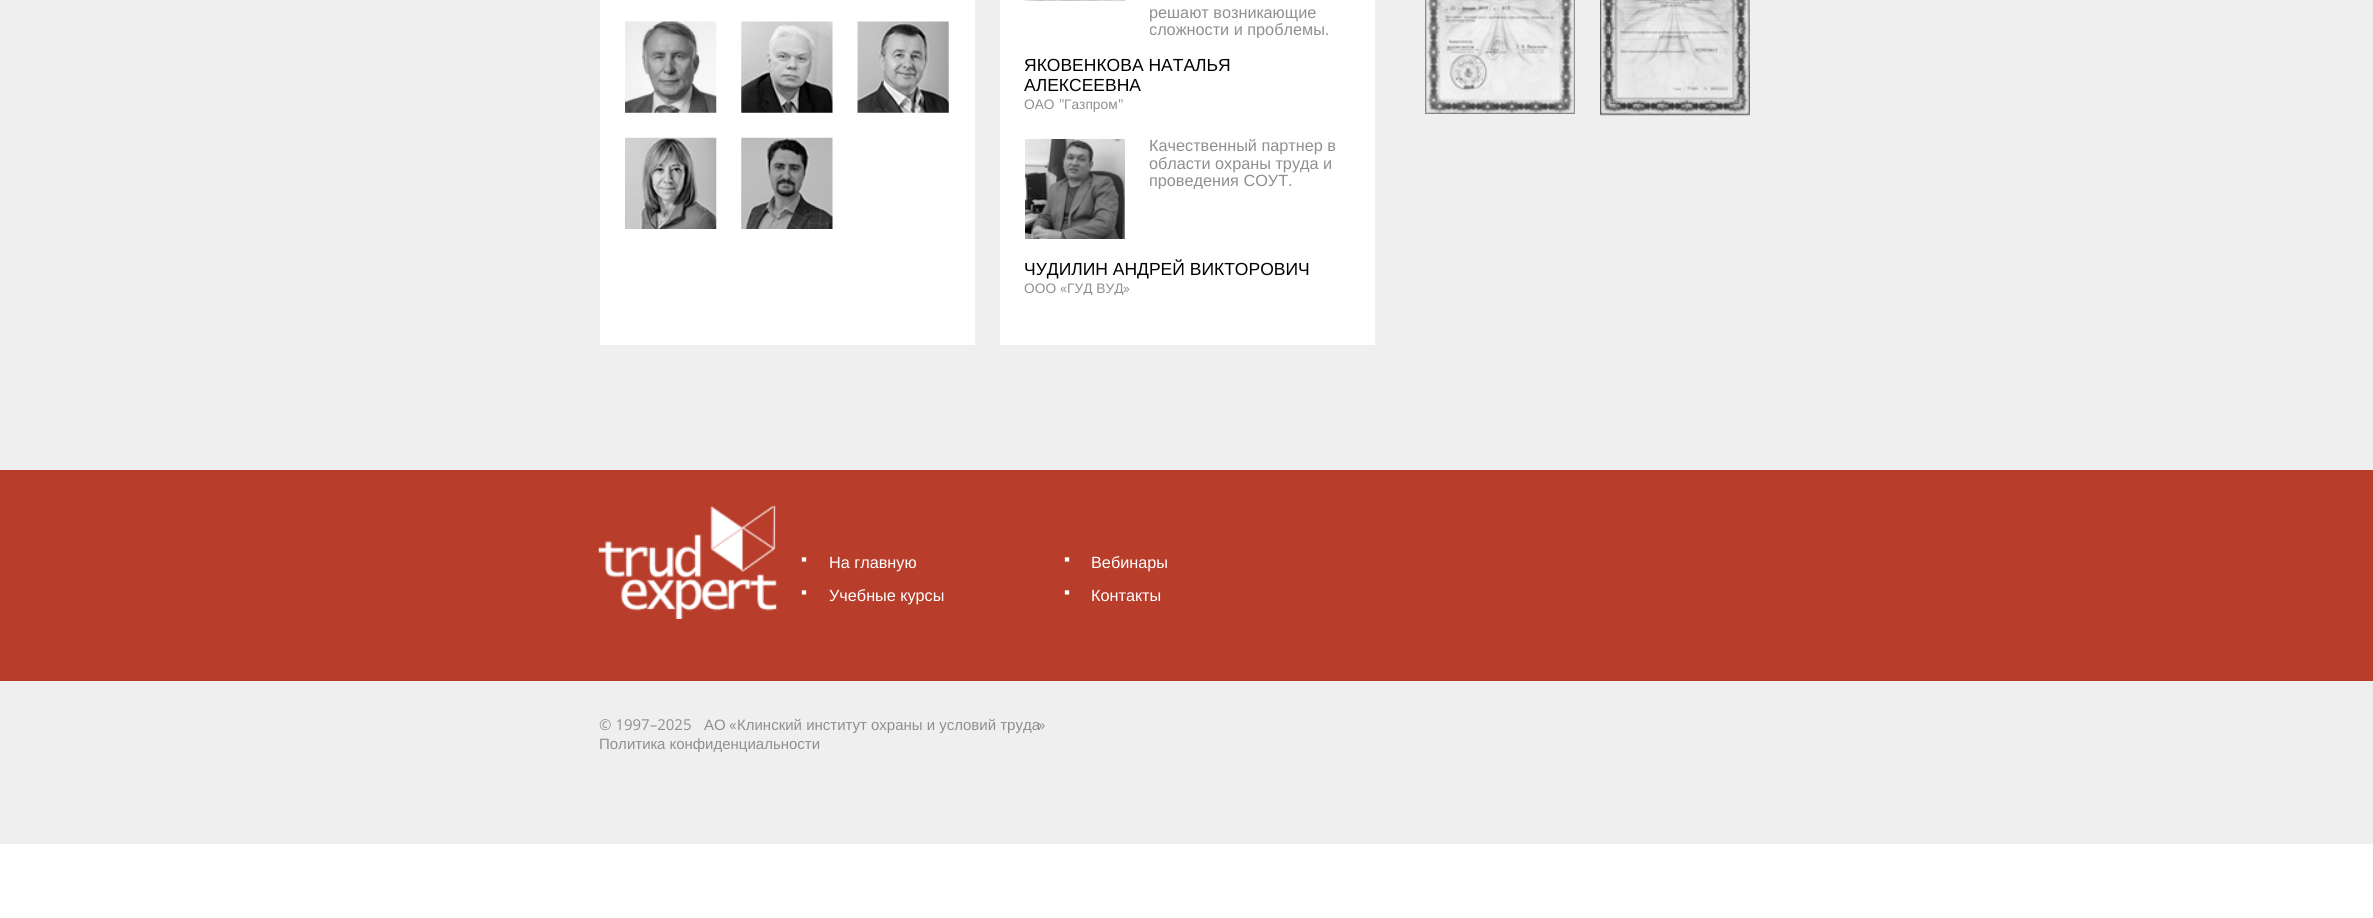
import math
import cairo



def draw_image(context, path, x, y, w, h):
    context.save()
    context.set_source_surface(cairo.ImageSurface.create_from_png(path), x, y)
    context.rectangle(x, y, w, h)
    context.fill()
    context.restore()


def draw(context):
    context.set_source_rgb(1, 1, 1)
    context.paint()
    context.set_source_rgb(239 / 255, 239 / 255, 239 / 255)
    context.rectangle(0, 0, 2373, 470)
    context.fill()
    context.set_source_rgb(1, 1, 1)
    context.rectangle(600, 0, 375, 345)
    context.fill()
    draw_image(context, "images/1.png", 625, 21, 92, 92)
    draw_image(context, "images/2.png", 741, 21, 92, 92)
    draw_image(context, "images/3.png", 857, 21, 92, 92)
    draw_image(context, "images/4.png", 625, 137, 92, 92)
    draw_image(context, "images/5.png", 741, 137, 92, 92)
    context.rectangle(1000, 0, 375, 345)
    context.fill()
    draw_image(context, "images/6.png", 1025, 0, 100, 1)
    draw_image(context, "images/7.png", 1025, 139, 100, 100)
    draw_image(context, "images/8.png", 1425, 0, 150, 114)
    draw_image(context, "images/9.png", 1600, 0, 150, 116)
    context.set_source_rgb(185 / 255, 61 / 255, 43 / 255)
    context.rectangle(0, 470, 2373, 211)
    context.fill()
    draw_image(context, "images/10.png", 598, 505, 179, 114)
    context.set_source_rgb(239 / 255, 239 / 255, 239 / 255)
    context.rectangle(0, 681, 2373, 163)
    context.fill()
    context.select_font_face("Liberation Sans")
    context.set_font_size(16.25)
    context.set_source_rgb(141 / 255, 143 / 255, 145 / 255)
    context.move_to(1149, 18)
    context.show_text("решают возникающие")
    context.save()
    context.rectangle(1150, 0, 200, 38)
    context.clip()
    context.move_to(1149, 35)
    context.show_text("сложности и проблемы.")
    context.restore()
    context.set_font_size(17.5)
    context.set_source_rgb(0, 0, 0)
    context.move_to(1024, 71)
    context.show_text("ЯКОВЕНКОВА НАТАЛЬЯ")
    context.move_to(1024, 91)
    context.show_text("АЛЕКСЕЕВНА")
    context.set_font_size(13.75)
    context.set_source_rgb(141 / 255, 143 / 255, 145 / 255)
    context.move_to(1024, 109)
    context.show_text("ОАО")
    context.select_font_face("Open Sans")
    context.move_to(1059, 109)
    context.show_text("\"")
    context.select_font_face("Liberation Sans")
    context.move_to(1064, 109)
    context.show_text("Газпром")
    context.select_font_face("Open Sans")
    context.move_to(1118, 109)
    context.show_text("\"")
    context.select_font_face("Liberation Sans")
    context.set_font_size(16.25)
    context.move_to(1149, 151)
    context.show_text("Качественный партнер в")
    context.move_to(1149, 169)
    context.show_text("области охраны труда и")
    context.save()
    context.rectangle(1150, 136, 200, 53)
    context.clip()
    context.move_to(1149, 186)
    context.show_text("проведения СОУТ.")
    context.restore()
    context.set_font_size(17.5)
    context.set_source_rgb(0, 0, 0)
    context.move_to(1024, 275)
    context.show_text("ЧУДИЛИН АНДРЕЙ ВИКТОРОВИЧ")
    context.set_font_size(13.75)
    context.set_source_rgb(141 / 255, 143 / 255, 145 / 255)
    context.move_to(1024, 293)
    context.show_text("ООО")
    context.select_font_face("Open Sans")
    context.move_to(1060, 293)
    context.show_text("«")
    context.save()
    context.rectangle(1025, 0, 325, 295)
    context.clip()
    context.select_font_face("Liberation Sans")
    context.move_to(1067, 293)
    context.show_text("ГУД ВУД")
    context.restore()
    context.move_to(1123, 293)
    context.show_text("»")
    context.select_font_face("Chiron Hei HK")
    context.set_font_size(12)
    context.set_source_rgb(1, 1, 1)
    context.move_to(801, 564)
    context.show_text("￭")
    context.select_font_face("Liberation Sans")
    context.set_font_size(16.25)
    context.move_to(829, 568)
    context.show_text("На главную")
    context.select_font_face("Chiron Hei HK")
    context.set_font_size(12)
    context.move_to(1064, 564)
    context.show_text("￭")
    context.select_font_face("Liberation Sans")
    context.set_font_size(16.25)
    context.move_to(1091, 568)
    context.show_text("Вебинары")
    context.select_font_face("Chiron Hei HK")
    context.set_font_size(12)
    context.move_to(801, 597)
    context.show_text("￭")
    context.select_font_face("Liberation Sans")
    context.set_font_size(16.25)
    context.move_to(829, 601)
    context.show_text("Учебные курсы")
    context.select_font_face("Chiron Hei HK")
    context.set_font_size(12)
    context.move_to(1064, 597)
    context.show_text("￭")
    context.select_font_face("Liberation Sans")
    context.set_font_size(16.25)
    context.move_to(1091, 601)
    context.show_text("Контакты")
    context.select_font_face("Open Sans")
    context.set_font_size(15)
    context.set_source_rgb(141 / 255, 143 / 255, 145 / 255)
    context.move_to(599, 730)
    context.show_text("© 1997–2025")
    context.select_font_face("Liberation Sans")
    context.move_to(704, 730)
    context.show_text("АО")
    context.select_font_face("Open Sans")
    context.move_to(729, 730)
    context.show_text("«")
    context.select_font_face("Liberation Sans")
    context.move_to(737, 730)
    context.show_text("Клинский институт охраны и условий труда")
    context.select_font_face("Open Sans")
    context.move_to(1038, 730)
    context.show_text("»")
    context.select_font_face("Liberation Sans")
    context.move_to(599, 749)
    context.show_text("Политика конфиденциальности")


surface = cairo.ImageSurface(cairo.Format.RGB24, 2373, 918)
context = cairo.Context(surface)
options = cairo.FontOptions()
options.set_hint_metrics(cairo.HintMetrics.OFF)
options.set_hint_style(cairo.HintStyle.NONE)
context.set_font_options(options)
context.set_miter_limit(4)
draw(context)
surface.write_to_png("out.png")
